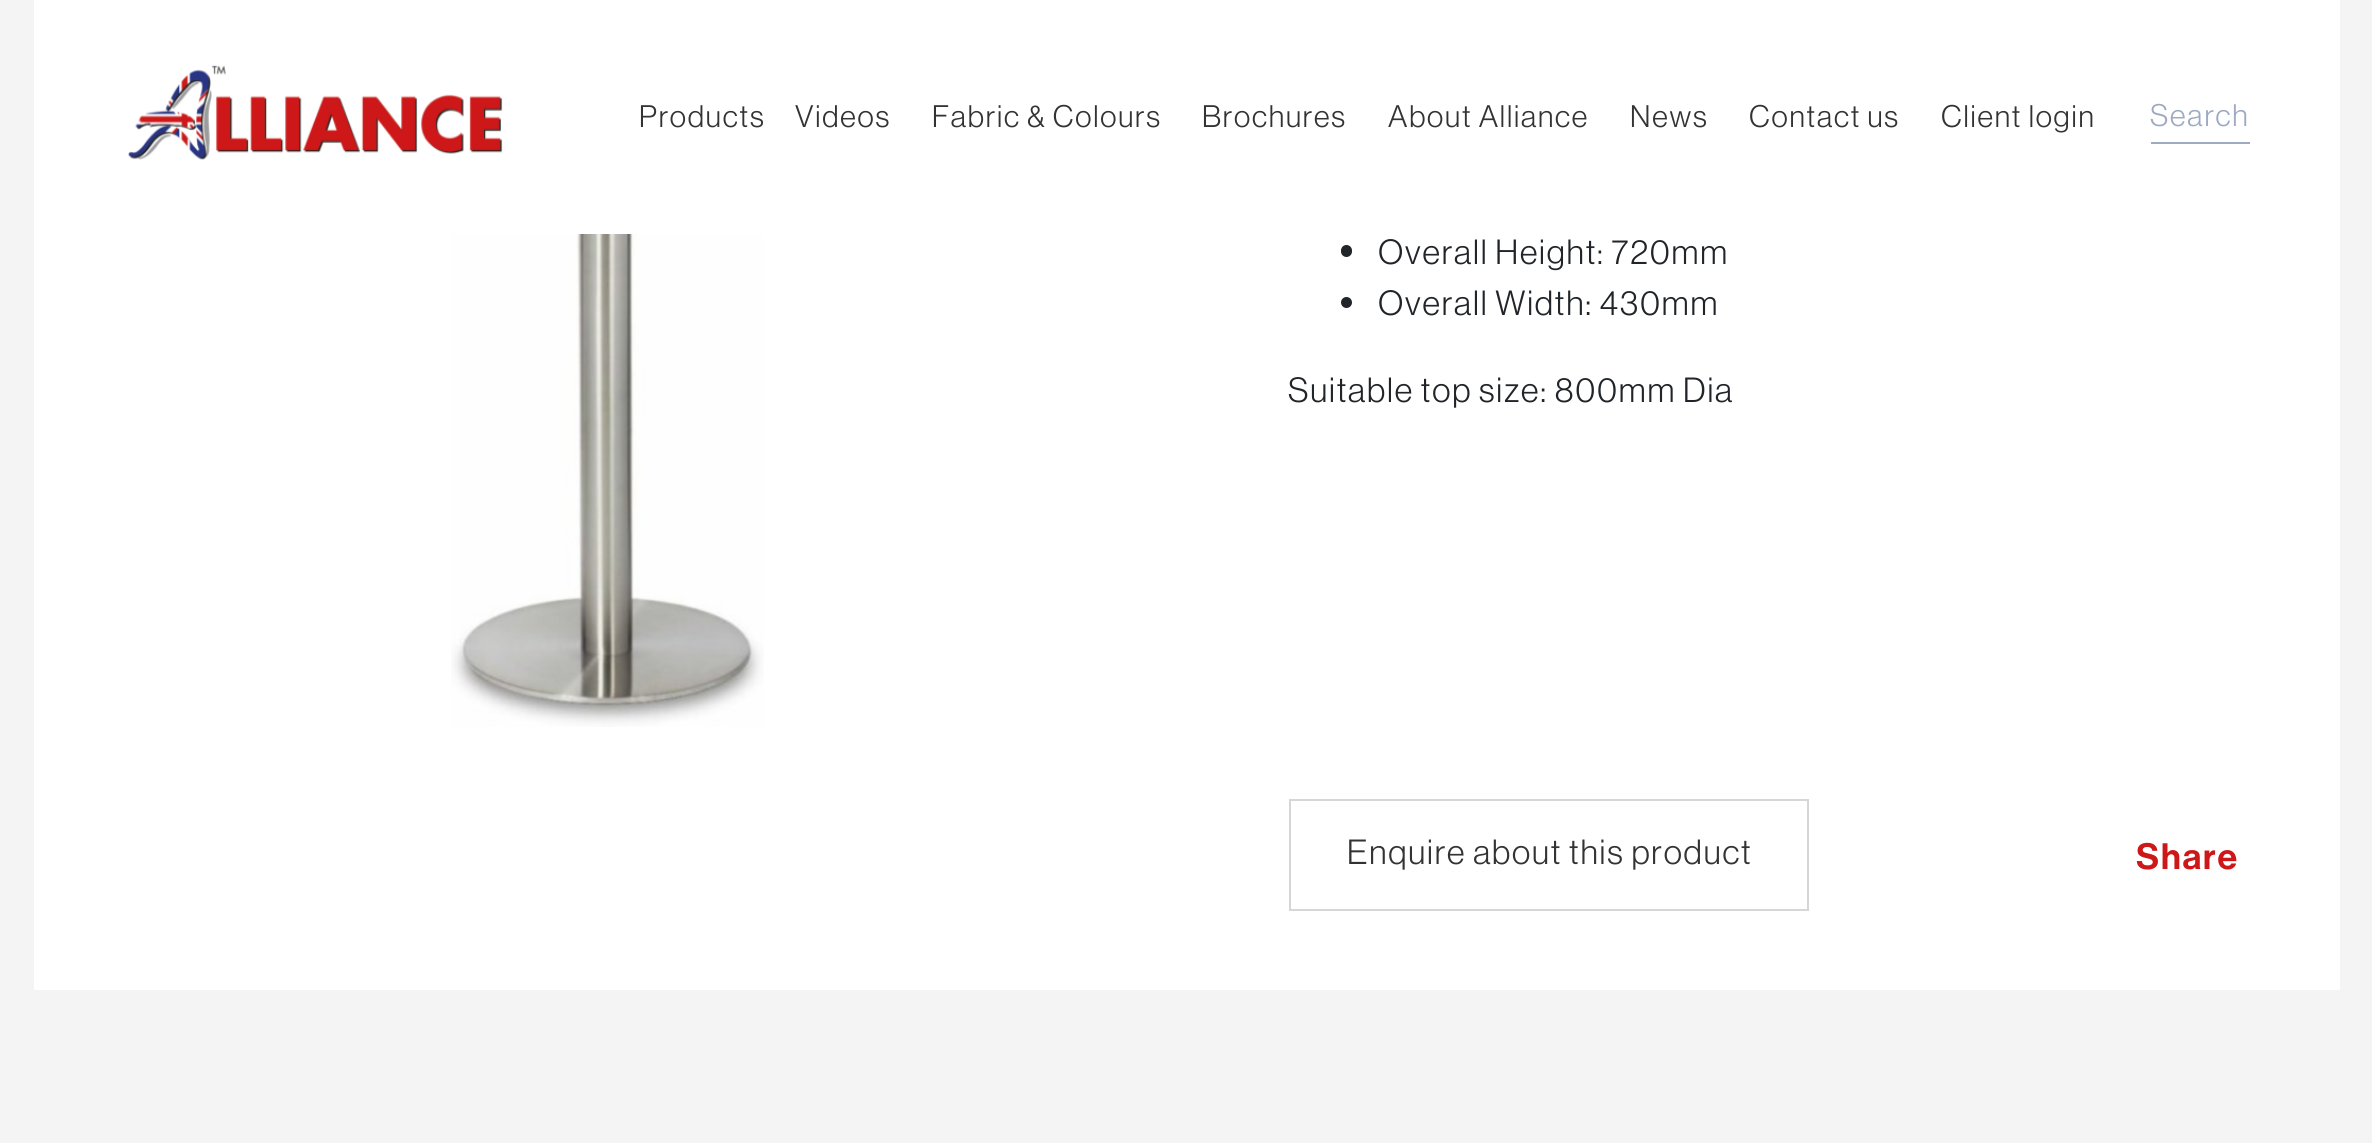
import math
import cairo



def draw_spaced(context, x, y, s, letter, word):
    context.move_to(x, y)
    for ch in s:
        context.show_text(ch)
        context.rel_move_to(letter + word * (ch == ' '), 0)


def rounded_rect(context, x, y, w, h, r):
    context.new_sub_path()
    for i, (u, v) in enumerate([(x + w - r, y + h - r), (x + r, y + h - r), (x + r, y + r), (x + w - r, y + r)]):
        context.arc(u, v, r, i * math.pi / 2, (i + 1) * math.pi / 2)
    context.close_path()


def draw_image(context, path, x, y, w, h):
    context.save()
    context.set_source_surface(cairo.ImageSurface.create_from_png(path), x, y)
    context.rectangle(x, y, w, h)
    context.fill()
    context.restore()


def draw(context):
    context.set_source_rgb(244 / 255, 244 / 255, 244 / 255)
    context.paint()
    context.set_source_rgb(1, 1, 1)
    context.rectangle(34, 0, 2306, 990)
    context.fill()
    draw_image(context, "images/1.png", 128, 65, 375, 95)
    context.set_source_rgb(158 / 255, 170 / 255, 194 / 255)
    context.rectangle(2151, 142, 99, 2)
    context.fill()
    draw_image(context, "images/2.png", 451, 234, 313, 493)
    context.set_source_rgb(33 / 255, 37 / 255, 41 / 255)
    rounded_rect(context, 1341, 245, 11, 12, 5.5)
    context.fill()
    context.arc(1346.5, 302.5, 5.5, 0, 2 * math.pi)
    context.fill()
    context.rectangle(1290, 800, 518, 110)
    context.set_source_rgb(214 / 255, 214 / 255, 214 / 255)
    context.stroke()
    context.select_font_face("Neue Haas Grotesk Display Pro")
    context.set_font_size(30.5)
    context.set_source_rgb(51 / 255, 51 / 255, 51 / 255)
    draw_spaced(context, 639, 127, "Products", 1.8, 0)
    draw_spaced(context, 795, 127, "Videos", 1.8, 0)
    draw_spaced(context, 932, 127, "Fabric & Colours", 1.8, 0)
    draw_spaced(context, 1202, 127, "Brochures", 1.8, 0)
    draw_spaced(context, 1388, 127, "About Alliance", 1.8, 0)
    draw_spaced(context, 1630, 127, "News", 1.8, 0)
    draw_spaced(context, 1749, 127, "Contact us", 1.8, 0)
    draw_spaced(context, 1941, 127, "Client login", 1.8, 0)
    context.set_source_rgb(158 / 255, 170 / 255, 194 / 255)
    draw_spaced(context, 2150, 126, "Search", 1.8, 0)
    context.set_font_size(34.25)
    context.set_source_rgb(33 / 255, 37 / 255, 41 / 255)
    draw_spaced(context, 1378, 264, "Overall Height: 720mm", 1.8, 0)
    draw_spaced(context, 1378, 315, "Overall Width: 430mm", 1.8, 0)
    draw_spaced(context, 1288, 402, "Suitable top size: 800mm Dia", 1.8, 0)
    context.set_source_rgb(51 / 255, 51 / 255, 51 / 255)
    draw_spaced(context, 1347, 864, "Enquire about this product", 1.8, 0)
    context.select_font_face("Neue Haas Grotesk Display Pro Medium")
    context.set_font_size(36)
    context.set_source_rgb(205 / 255, 23 / 255, 25 / 255)
    draw_spaced(context, 2136, 869, "Share", 1.8, 0)


surface = cairo.ImageSurface(cairo.Format.RGB24, 2372, 1143)
context = cairo.Context(surface)
options = cairo.FontOptions()
options.set_hint_metrics(cairo.HintMetrics.OFF)
options.set_hint_style(cairo.HintStyle.NONE)
context.set_font_options(options)
context.set_miter_limit(4)
draw(context)
surface.write_to_png("out.png")
